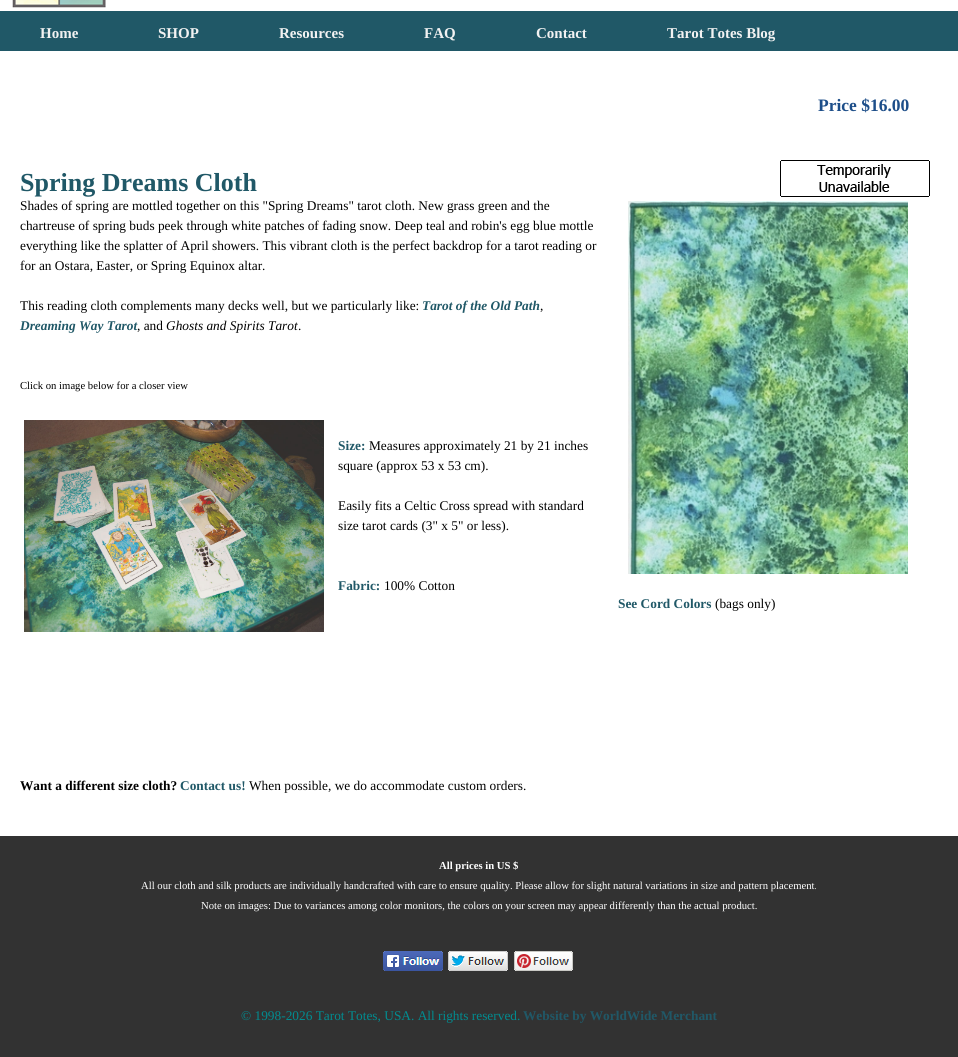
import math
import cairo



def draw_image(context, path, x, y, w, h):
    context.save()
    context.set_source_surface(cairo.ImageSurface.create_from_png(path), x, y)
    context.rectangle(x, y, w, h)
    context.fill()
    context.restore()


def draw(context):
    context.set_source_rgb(1, 1, 1)
    context.paint()
    draw_image(context, "images/1.png", 12, 0, 94, 8)
    context.set_source_rgb(32 / 255, 88 / 255, 103 / 255)
    context.rectangle(0, 11, 958, 40)
    context.fill()
    draw_image(context, "images/2.png", 780, 160, 150, 37)
    draw_image(context, "images/3.png", 24, 420, 300, 212)
    draw_image(context, "images/4.png", 628, 201, 280, 373)
    context.set_source_rgb(50 / 255, 50 / 255, 50 / 255)
    context.rectangle(0, 836, 958, 221)
    context.fill()
    draw_image(context, "images/5.png", 383, 951, 60, 20)
    draw_image(context, "images/6.png", 448, 951, 60, 20)
    draw_image(context, "images/7.png", 514, 951, 59, 20)
    context.select_font_face("Liberation Serif", cairo.FontSlant.NORMAL, cairo.FontWeight.BOLD)
    context.set_font_size(15)
    context.set_source_rgb(242 / 255, 242 / 255, 242 / 255)
    context.move_to(40, 38)
    context.show_text("Home")
    context.move_to(158, 38)
    context.show_text("SHOP")
    context.move_to(279, 38)
    context.show_text("Resources")
    context.move_to(424, 38)
    context.show_text("FAQ")
    context.move_to(536, 38)
    context.show_text("Contact")
    context.move_to(667, 38)
    context.show_text("Tarot Totes Blog")
    context.set_font_size(17.5)
    context.set_source_rgb(29 / 255, 78 / 255, 137 / 255)
    context.move_to(818, 111)
    context.show_text("Price $16.00")
    context.set_font_size(26)
    context.set_source_rgb(32 / 255, 88 / 255, 103 / 255)
    context.move_to(20, 191)
    context.show_text("Spring Dreams Cloth")
    context.select_font_face("Liberation Serif")
    context.set_font_size(13.35)
    context.set_source_rgb(0, 0, 0)
    context.move_to(20, 210)
    context.show_text("Shades of spring are mottled together on this \"Spring Dreams\" tarot cloth. New grass green and the")
    context.move_to(20, 230)
    context.show_text("chartreuse of spring buds peek through white patches of fading snow. Deep teal and robin's egg blue mottle")
    context.move_to(20, 250)
    context.show_text("everything like the splatter of April showers. This vibrant cloth is the perfect backdrop for a tarot reading or")
    context.move_to(20, 270)
    context.show_text("for an Ostara, Easter, or Spring Equinox altar.")
    context.move_to(20, 310)
    context.show_text("This reading cloth complements many decks well, but we particularly like:")
    context.select_font_face("Liberation Serif", cairo.FontSlant.ITALIC, cairo.FontWeight.BOLD)
    context.set_source_rgb(32 / 255, 88 / 255, 103 / 255)
    context.move_to(422, 310)
    context.show_text("Tarot of the Old Path")
    context.select_font_face("Liberation Serif")
    context.set_source_rgb(0, 0, 0)
    context.move_to(540, 310)
    context.show_text(",")
    context.select_font_face("Liberation Serif", cairo.FontSlant.ITALIC, cairo.FontWeight.BOLD)
    context.set_source_rgb(32 / 255, 88 / 255, 103 / 255)
    context.move_to(20, 330)
    context.show_text("Dreaming Way Tarot")
    context.select_font_face("Liberation Serif")
    context.set_source_rgb(0, 0, 0)
    context.move_to(137, 330)
    context.show_text(", and")
    context.select_font_face("Liberation Serif", cairo.FontSlant.ITALIC)
    context.move_to(166, 330)
    context.show_text("Ghosts and Spirits Tarot")
    context.select_font_face("Liberation Serif")
    context.move_to(298, 330)
    context.show_text(".")
    context.set_font_size(10.67)
    context.move_to(20, 389)
    context.show_text("Click on image below for a closer view")
    context.select_font_face("Liberation Serif", cairo.FontSlant.NORMAL, cairo.FontWeight.BOLD)
    context.set_font_size(13.35)
    context.set_source_rgb(32 / 255, 88 / 255, 103 / 255)
    context.move_to(338, 450)
    context.show_text("Size:")
    context.select_font_face("Liberation Serif")
    context.set_source_rgb(0, 0, 0)
    context.move_to(369, 450)
    context.show_text("Measures approximately 21 by 21 inches")
    context.move_to(338, 470)
    context.show_text("square (approx 53 x 53 cm).")
    context.move_to(338, 510)
    context.show_text("Easily fits a Celtic Cross spread with standard")
    context.move_to(338, 530)
    context.show_text("size tarot cards (3\" x 5\" or less).")
    context.select_font_face("Liberation Serif", cairo.FontSlant.NORMAL, cairo.FontWeight.BOLD)
    context.set_source_rgb(32 / 255, 88 / 255, 103 / 255)
    context.move_to(338, 590)
    context.show_text("Fabric:")
    context.select_font_face("Liberation Serif")
    context.set_source_rgb(0, 0, 0)
    context.move_to(384, 590)
    context.show_text("100% Cotton")
    context.select_font_face("Liberation Serif", cairo.FontSlant.NORMAL, cairo.FontWeight.BOLD)
    context.move_to(20, 790)
    context.show_text("Want a different size cloth?")
    context.set_source_rgb(32 / 255, 88 / 255, 103 / 255)
    context.move_to(180, 790)
    context.show_text("Contact us!")
    context.select_font_face("Liberation Serif")
    context.set_source_rgb(0, 0, 0)
    context.move_to(249, 790)
    context.show_text("When possible, we do accommodate custom orders.")
    context.select_font_face("Liberation Serif", cairo.FontSlant.NORMAL, cairo.FontWeight.BOLD)
    context.set_source_rgb(32 / 255, 88 / 255, 103 / 255)
    context.move_to(618, 608)
    context.show_text("See Cord Colors")
    context.select_font_face("Liberation Serif")
    context.set_source_rgb(0, 0, 0)
    context.move_to(715, 608)
    context.show_text("(bags only)")
    context.select_font_face("Liberation Serif", cairo.FontSlant.NORMAL, cairo.FontWeight.BOLD)
    context.set_font_size(10.67)
    context.set_source_rgb(1, 1, 1)
    context.move_to(439, 869)
    context.show_text("All prices in US $")
    context.select_font_face("Liberation Serif")
    context.move_to(141, 889)
    context.show_text("All our cloth and silk products are individually handcrafted with care to ensure quality. Please allow for slight natural variations in size and pattern placement.")
    context.move_to(201, 909)
    context.show_text("Note on images: Due to variances among color monitors, the colors on your screen may appear differently than the actual product.")
    context.set_font_size(13.35)
    context.set_source_rgb(1 / 255, 140 / 255, 144 / 255)
    context.move_to(241, 1020)
    context.show_text("© 1998-2026 Tarot Totes, USA. All rights reserved.")
    context.select_font_face("Liberation Serif", cairo.FontSlant.NORMAL, cairo.FontWeight.BOLD)
    context.set_source_rgb(32 / 255, 88 / 255, 103 / 255)
    context.move_to(523, 1020)
    context.show_text("Website by WorldWide Merchant")


surface = cairo.ImageSurface(cairo.Format.RGB24, 958, 1057)
context = cairo.Context(surface)
options = cairo.FontOptions()
options.set_hint_metrics(cairo.HintMetrics.OFF)
options.set_hint_style(cairo.HintStyle.NONE)
context.set_font_options(options)
context.set_miter_limit(4)
draw(context)
surface.write_to_png("out.png")
